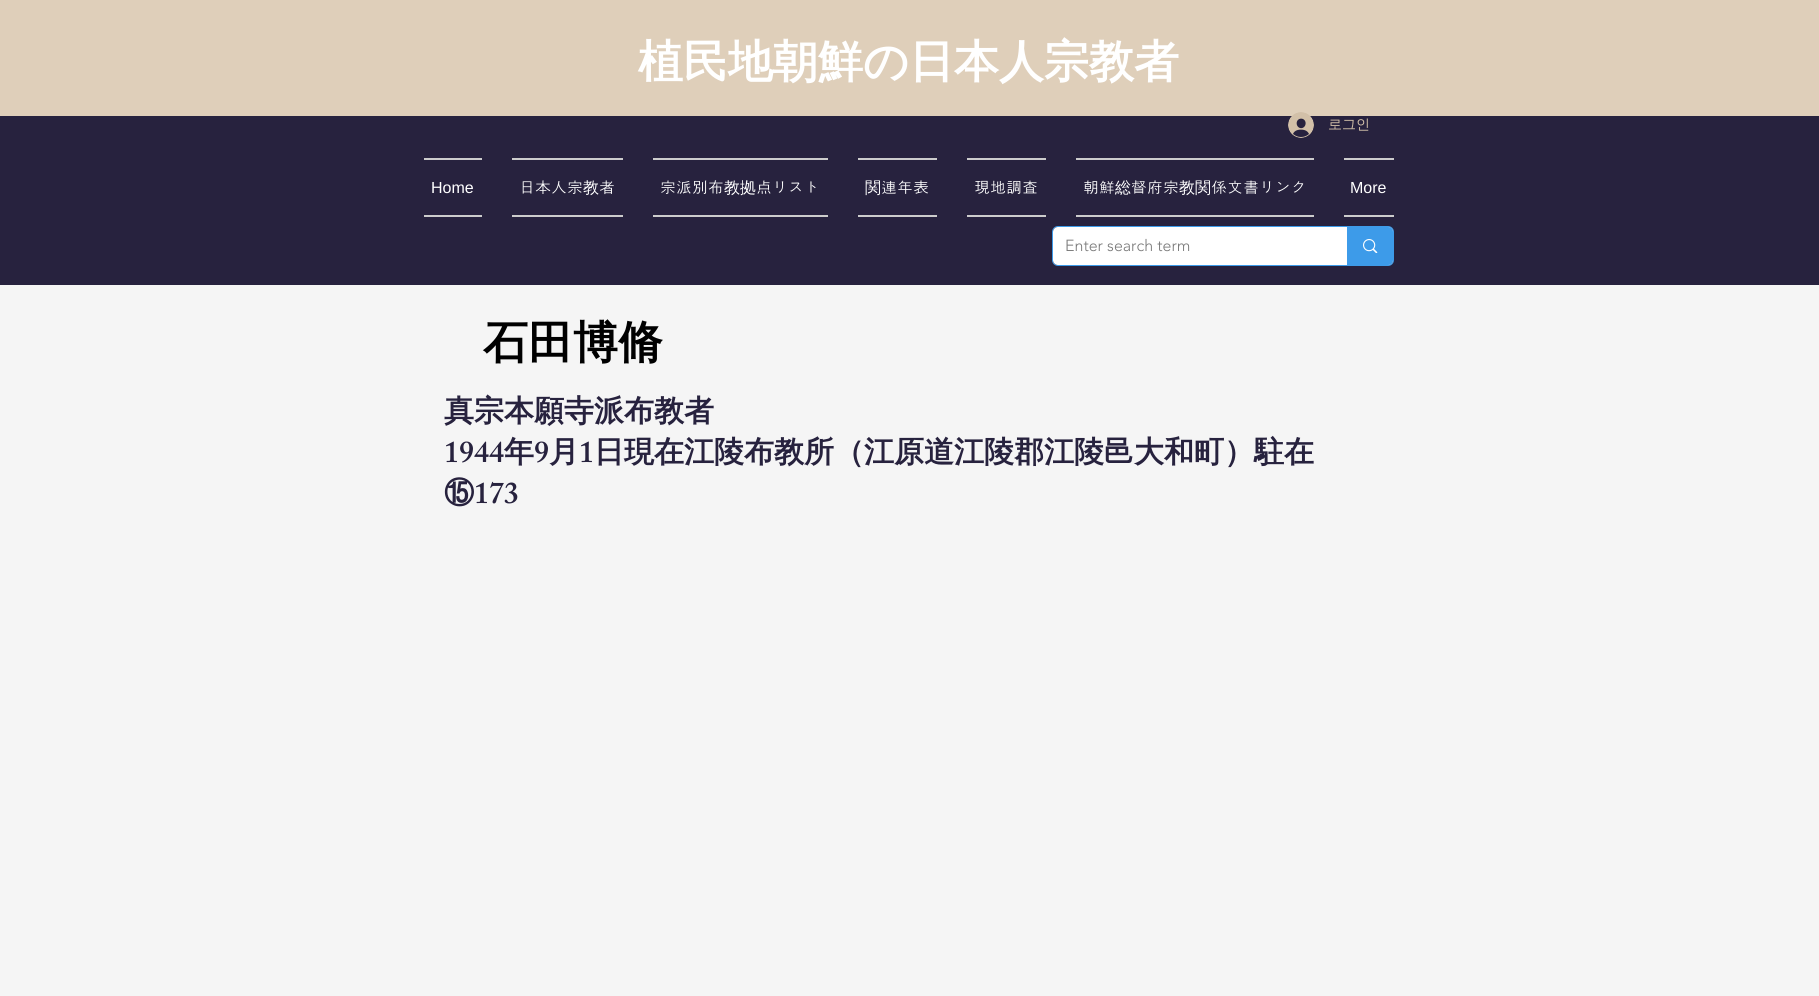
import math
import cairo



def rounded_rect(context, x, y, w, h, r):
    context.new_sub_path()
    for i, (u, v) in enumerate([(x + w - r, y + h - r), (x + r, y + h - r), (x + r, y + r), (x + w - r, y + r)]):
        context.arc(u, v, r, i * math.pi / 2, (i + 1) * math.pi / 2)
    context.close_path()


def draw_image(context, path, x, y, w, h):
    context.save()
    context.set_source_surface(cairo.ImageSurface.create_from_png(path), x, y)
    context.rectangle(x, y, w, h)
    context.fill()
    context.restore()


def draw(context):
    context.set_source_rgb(245 / 255, 245 / 255, 245 / 255)
    context.paint()
    context.set_source_rgb(223 / 255, 207 / 255, 186 / 255)
    context.rectangle(0, 0, 1819, 116)
    context.fill()
    context.set_source_rgb(39 / 255, 34 / 255, 62 / 255)
    context.rectangle(0, 116, 1819, 169)
    context.fill()
    draw_image(context, "images/1.png", 1288, 112, 26, 26)
    context.set_source_rgb(204 / 255, 204 / 255, 204 / 255)
    context.rectangle(424, 158, 58, 2)
    context.fill()
    context.rectangle(424, 215, 58, 2)
    context.fill()
    context.rectangle(512, 158, 111, 2)
    context.fill()
    context.rectangle(512, 215, 111, 2)
    context.fill()
    context.rectangle(653, 158, 175, 2)
    context.fill()
    context.rectangle(653, 215, 175, 2)
    context.fill()
    context.rectangle(858, 158, 79, 2)
    context.fill()
    context.rectangle(858, 215, 79, 2)
    context.fill()
    context.rectangle(967, 158, 79, 2)
    context.fill()
    context.rectangle(967, 215, 79, 2)
    context.fill()
    context.rectangle(1076, 158, 238, 2)
    context.fill()
    context.rectangle(1076, 215, 238, 2)
    context.fill()
    context.rectangle(1344, 158, 50, 2)
    context.fill()
    context.rectangle(1344, 215, 50, 2)
    context.fill()
    rounded_rect(context, 1052.5, 226.5, 341, 39, 5.5)
    context.set_source_rgb(61 / 255, 155 / 255, 233 / 255)
    context.set_line_width(1)
    context.stroke()
    context.set_source_rgb(1, 1, 1)
    rounded_rect(context, 1053, 227, 340, 38, 5)
    context.fill()
    context.set_source_rgb(61 / 255, 155 / 255, 233 / 255)
    context.new_path()
    context.move_to(1347, 227)
    context.line_to(1388, 227)
    context.curve_to(1391, 227, 1393, 229, 1393, 232)
    context.line_to(1393, 260)
    context.curve_to(1393, 263, 1391, 265, 1388, 265)
    context.line_to(1347, 265)
    context.close_path()
    context.fill()
    draw_image(context, "images/2.png", 1363, 239, 15, 14)
    context.select_font_face("WenQuanYi Zen Hei", cairo.FontSlant.NORMAL, cairo.FontWeight.BOLD)
    context.set_font_size(45)
    context.set_source_rgb(1, 1, 1)
    context.move_to(638, 77)
    context.show_text("植民地朝鮮の日本人宗教者")
    context.select_font_face("WenQuanYi Zen Hei Medium")
    context.set_font_size(14)
    context.set_source_rgb(210 / 255, 192 / 255, 168 / 255)
    context.move_to(1328, 129)
    context.show_text("로그인")
    context.select_font_face("Liberation Sans")
    context.set_font_size(16)
    context.set_source_rgb(1, 1, 1)
    context.move_to(431, 193)
    context.show_text("Home")
    context.select_font_face("Dotum")
    context.move_to(519, 193)
    context.show_text("日本人宗")
    context.select_font_face("WenQuanYi Zen Hei Medium")
    context.move_to(583, 193)
    context.show_text("教")
    context.select_font_face("Dotum")
    context.move_to(599, 193)
    context.show_text("者")
    context.move_to(660, 193)
    context.show_text("宗派別布")
    context.select_font_face("WenQuanYi Zen Hei Medium")
    context.move_to(724, 193)
    context.show_text("教拠")
    context.select_font_face("Dotum")
    context.move_to(756, 193)
    context.show_text("点リスト")
    context.select_font_face("WenQuanYi Zen Hei Medium")
    context.move_to(865, 193)
    context.show_text("関")
    context.select_font_face("Dotum")
    context.move_to(881, 193)
    context.show_text("連年表")
    context.move_to(974, 193)
    context.show_text("現地調査")
    context.move_to(1083, 193)
    context.show_text("朝鮮")
    context.select_font_face("WenQuanYi Zen Hei Medium")
    context.move_to(1115, 193)
    context.show_text("総")
    context.select_font_face("Dotum")
    context.move_to(1131, 193)
    context.show_text("督府宗")
    context.select_font_face("WenQuanYi Zen Hei Medium")
    context.move_to(1179, 193)
    context.show_text("教関")
    context.select_font_face("Dotum")
    context.move_to(1211, 193)
    context.show_text("係文書リンク")
    context.select_font_face("Liberation Sans")
    context.move_to(1350, 193)
    context.show_text("More")
    context.select_font_face("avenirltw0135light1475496 Light")
    context.set_source_rgb(120 / 255, 120 / 255, 120 / 255)
    context.move_to(1065, 251)
    context.show_text("Enter search term")
    context.select_font_face("WenQuanYi Zen Hei", cairo.FontSlant.NORMAL, cairo.FontWeight.BOLD)
    context.set_font_size(45)
    context.set_source_rgb(0, 0, 0)
    context.move_to(483, 358)
    context.show_text("石田博脩")
    context.set_font_size(30)
    context.set_source_rgb(39 / 255, 34 / 255, 62 / 255)
    context.move_to(444, 421)
    context.show_text("真宗本願寺派布教者")
    context.select_font_face("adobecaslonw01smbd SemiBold")
    context.move_to(444, 462)
    context.show_text("1944")
    context.select_font_face("WenQuanYi Zen Hei", cairo.FontSlant.NORMAL, cairo.FontWeight.BOLD)
    context.move_to(504, 462)
    context.show_text("年")
    context.select_font_face("adobecaslonw01smbd SemiBold")
    context.move_to(534, 462)
    context.show_text("9")
    context.select_font_face("WenQuanYi Zen Hei", cairo.FontSlant.NORMAL, cairo.FontWeight.BOLD)
    context.move_to(549, 462)
    context.show_text("月")
    context.select_font_face("adobecaslonw01smbd SemiBold")
    context.move_to(579, 462)
    context.show_text("1")
    context.select_font_face("WenQuanYi Zen Hei", cairo.FontSlant.NORMAL, cairo.FontWeight.BOLD)
    context.move_to(594, 462)
    context.show_text("日現在江陵布教所（江原道江陵郡江陵邑大和町）駐在")
    context.move_to(444, 503)
    context.show_text("⑮")
    context.select_font_face("adobecaslonw01smbd SemiBold")
    context.move_to(474, 503)
    context.show_text("173")


surface = cairo.ImageSurface(cairo.Format.RGB24, 1819, 996)
context = cairo.Context(surface)
options = cairo.FontOptions()
options.set_hint_metrics(cairo.HintMetrics.OFF)
options.set_hint_style(cairo.HintStyle.NONE)
context.set_font_options(options)
context.set_miter_limit(4)
draw(context)
surface.write_to_png("out.png")
